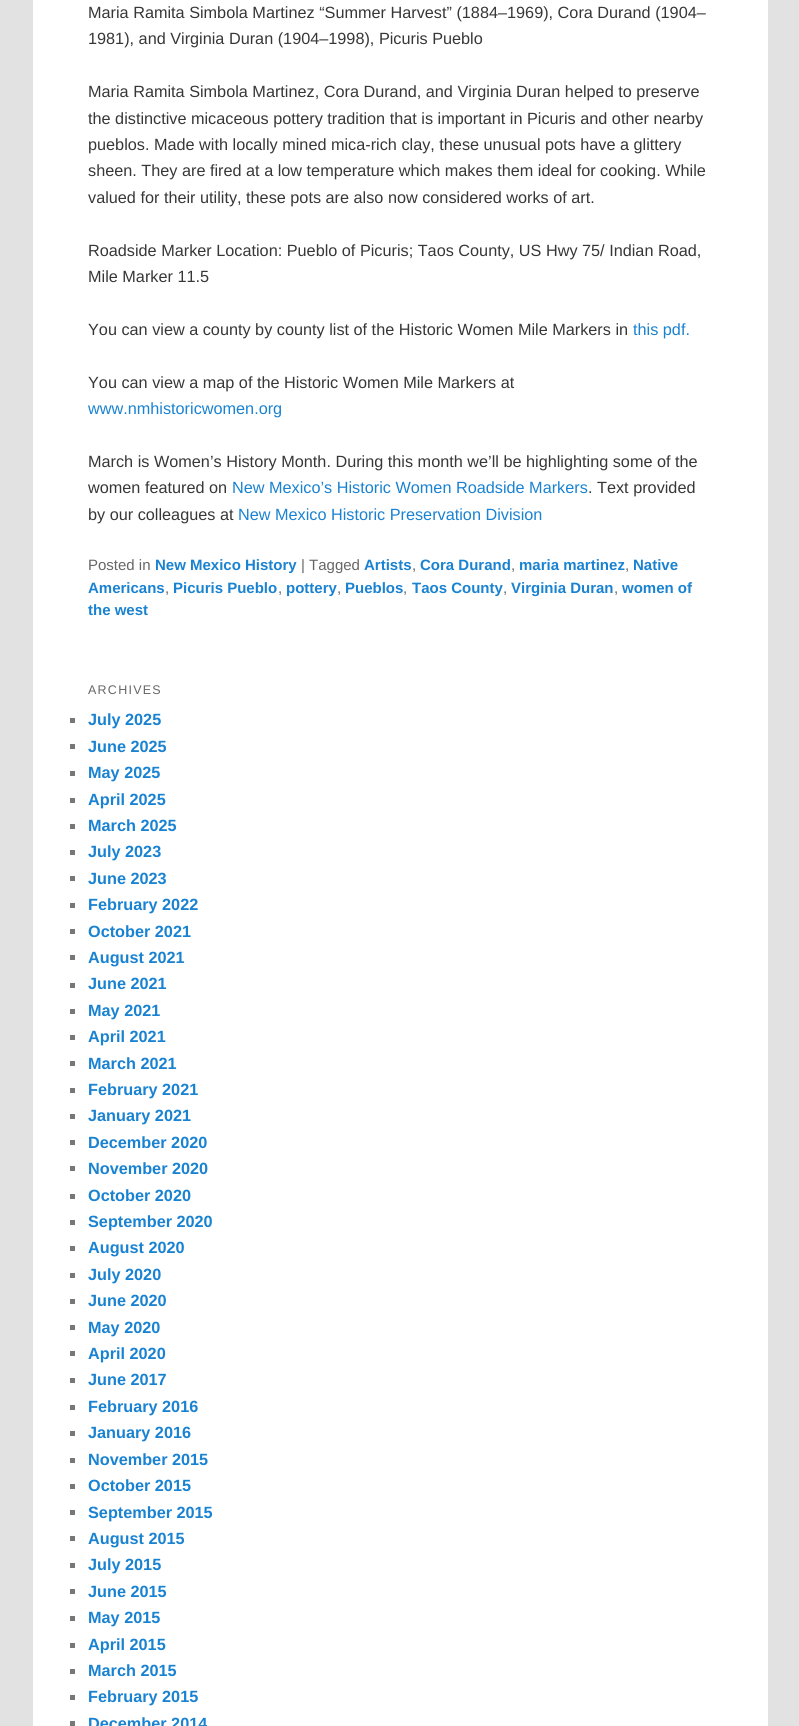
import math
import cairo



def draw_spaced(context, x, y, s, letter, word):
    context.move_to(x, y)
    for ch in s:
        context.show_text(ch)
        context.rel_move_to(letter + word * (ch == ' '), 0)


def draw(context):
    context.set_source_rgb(226 / 255, 226 / 255, 226 / 255)
    context.paint()
    context.set_source_rgb(1, 1, 1)
    context.rectangle(33, 0, 735, 1726)
    context.fill()
    context.set_source_rgb(119 / 255, 119 / 255, 119 / 255)
    context.rectangle(70, 718, 5, 5)
    context.fill()
    context.rectangle(70, 744, 5, 5)
    context.fill()
    context.rectangle(70, 771, 5, 5)
    context.fill()
    context.rectangle(70, 798, 5, 5)
    context.fill()
    context.rectangle(70, 824, 5, 5)
    context.fill()
    context.rectangle(70, 850, 5, 5)
    context.fill()
    context.rectangle(70, 876, 5, 5)
    context.fill()
    context.rectangle(70, 903, 5, 5)
    context.fill()
    context.rectangle(70, 929, 5, 5)
    context.fill()
    context.rectangle(70, 955, 5, 5)
    context.fill()
    context.rectangle(70, 983, 5, 5)
    context.fill()
    context.rectangle(70, 1009, 5, 5)
    context.fill()
    context.rectangle(70, 1035, 5, 5)
    context.fill()
    context.rectangle(70, 1061, 5, 5)
    context.fill()
    context.rectangle(70, 1088, 5, 5)
    context.fill()
    context.rectangle(70, 1114, 5, 5)
    context.fill()
    context.rectangle(70, 1140, 5, 5)
    context.fill()
    context.rectangle(70, 1166, 5, 5)
    context.fill()
    context.rectangle(70, 1194, 5, 5)
    context.fill()
    context.rectangle(70, 1220, 5, 5)
    context.fill()
    context.rectangle(70, 1246, 5, 5)
    context.fill()
    context.rectangle(70, 1273, 5, 5)
    context.fill()
    context.rectangle(70, 1299, 5, 5)
    context.fill()
    context.rectangle(70, 1325, 5, 5)
    context.fill()
    context.rectangle(70, 1351, 5, 5)
    context.fill()
    context.rectangle(70, 1378, 5, 5)
    context.fill()
    context.rectangle(70, 1405, 5, 5)
    context.fill()
    context.rectangle(70, 1431, 5, 5)
    context.fill()
    context.rectangle(70, 1458, 5, 5)
    context.fill()
    context.rectangle(70, 1484, 5, 5)
    context.fill()
    context.rectangle(70, 1510, 5, 5)
    context.fill()
    context.rectangle(70, 1536, 5, 5)
    context.fill()
    context.rectangle(70, 1563, 5, 5)
    context.fill()
    context.rectangle(70, 1589, 5, 5)
    context.fill()
    context.rectangle(70, 1616, 5, 5)
    context.fill()
    context.rectangle(70, 1643, 5, 5)
    context.fill()
    context.rectangle(70, 1669, 5, 5)
    context.fill()
    context.rectangle(70, 1695, 5, 5)
    context.fill()
    context.rectangle(70, 1721, 5, 5)
    context.fill()
    context.select_font_face("Liberation Sans")
    context.set_font_size(16.25)
    context.set_source_rgb(55 / 255, 55 / 255, 55 / 255)
    context.move_to(88, 18)
    context.show_text("Maria Ramita Simbola Martinez “Summer Harvest” (1884–1969), Cora Durand (1904–")
    context.move_to(88, 44)
    context.show_text("1981), and Virginia Duran (1904–1998), Picuris Pueblo")
    context.move_to(88, 97)
    context.show_text("Maria Ramita Simbola Martinez, Cora Durand, and Virginia Duran helped to preserve")
    context.move_to(88, 124)
    context.show_text("the distinctive micaceous pottery tradition that is important in Picuris and other nearby")
    context.move_to(88, 150)
    context.show_text("pueblos. Made with locally mined mica-rich clay, these unusual pots have a glittery")
    context.move_to(88, 176)
    context.show_text("sheen. They are fired at a low temperature which makes them ideal for cooking. While")
    context.move_to(88, 203)
    context.show_text("valued for their utility, these pots are also now considered works of art.")
    context.move_to(88, 256)
    context.show_text("Roadside Marker Location: Pueblo of Picuris; Taos County, US Hwy 75/ Indian Road,")
    context.move_to(88, 282)
    context.show_text("Mile Marker 11.5")
    context.move_to(88, 335)
    context.show_text("You can view a county by county list of the Historic Women Mile Markers in")
    context.set_source_rgb(25 / 255, 130 / 255, 209 / 255)
    context.move_to(633, 335)
    context.show_text("this pdf.")
    context.set_source_rgb(55 / 255, 55 / 255, 55 / 255)
    context.move_to(88, 388)
    context.show_text("You can view a map of the Historic Women Mile Markers at")
    context.set_source_rgb(25 / 255, 130 / 255, 209 / 255)
    context.move_to(88, 414)
    context.show_text("www.nmhistoricwomen.org")
    context.set_source_rgb(55 / 255, 55 / 255, 55 / 255)
    context.move_to(88, 467)
    context.show_text("March is Women’s History Month. During this month we’ll be highlighting some of the")
    context.move_to(88, 493)
    context.show_text("women featured on")
    context.set_source_rgb(25 / 255, 130 / 255, 209 / 255)
    context.move_to(232, 493)
    context.show_text("New Mexico’s Historic Women Roadside Markers")
    context.set_source_rgb(55 / 255, 55 / 255, 55 / 255)
    context.move_to(588, 493)
    context.show_text(". Text provided")
    context.move_to(88, 520)
    context.show_text("by our colleagues at")
    context.set_source_rgb(25 / 255, 130 / 255, 209 / 255)
    context.move_to(238, 520)
    context.show_text("New Mexico Historic Preservation Division")
    context.set_font_size(15)
    context.set_source_rgb(102 / 255, 102 / 255, 102 / 255)
    context.move_to(88, 570)
    context.show_text("Posted in")
    context.select_font_face("Liberation Sans", cairo.FontSlant.NORMAL, cairo.FontWeight.BOLD)
    context.set_source_rgb(25 / 255, 130 / 255, 209 / 255)
    context.move_to(155, 570)
    context.show_text("New Mexico History")
    context.select_font_face("Liberation Sans")
    context.set_source_rgb(102 / 255, 102 / 255, 102 / 255)
    context.move_to(301, 570)
    context.show_text("| Tagged")
    context.select_font_face("Liberation Sans", cairo.FontSlant.NORMAL, cairo.FontWeight.BOLD)
    context.set_source_rgb(25 / 255, 130 / 255, 209 / 255)
    context.move_to(364, 570)
    context.show_text("Artists")
    context.select_font_face("Liberation Sans")
    context.set_source_rgb(102 / 255, 102 / 255, 102 / 255)
    context.move_to(412, 570)
    context.show_text(",")
    context.select_font_face("Liberation Sans", cairo.FontSlant.NORMAL, cairo.FontWeight.BOLD)
    context.set_source_rgb(25 / 255, 130 / 255, 209 / 255)
    context.move_to(420, 570)
    context.show_text("Cora Durand")
    context.select_font_face("Liberation Sans")
    context.set_source_rgb(102 / 255, 102 / 255, 102 / 255)
    context.move_to(511, 570)
    context.show_text(",")
    context.select_font_face("Liberation Sans", cairo.FontSlant.NORMAL, cairo.FontWeight.BOLD)
    context.set_source_rgb(25 / 255, 130 / 255, 209 / 255)
    context.move_to(519, 570)
    context.show_text("maria martinez")
    context.select_font_face("Liberation Sans")
    context.set_source_rgb(102 / 255, 102 / 255, 102 / 255)
    context.move_to(625, 570)
    context.show_text(",")
    context.select_font_face("Liberation Sans", cairo.FontSlant.NORMAL, cairo.FontWeight.BOLD)
    context.set_source_rgb(25 / 255, 130 / 255, 209 / 255)
    context.move_to(633, 570)
    context.show_text("Native")
    context.move_to(88, 593)
    context.show_text("Americans")
    context.select_font_face("Liberation Sans")
    context.set_source_rgb(102 / 255, 102 / 255, 102 / 255)
    context.move_to(165, 593)
    context.show_text(",")
    context.select_font_face("Liberation Sans", cairo.FontSlant.NORMAL, cairo.FontWeight.BOLD)
    context.set_source_rgb(25 / 255, 130 / 255, 209 / 255)
    context.move_to(173, 593)
    context.show_text("Picuris Pueblo")
    context.select_font_face("Liberation Sans")
    context.set_source_rgb(102 / 255, 102 / 255, 102 / 255)
    context.move_to(278, 593)
    context.show_text(",")
    context.select_font_face("Liberation Sans", cairo.FontSlant.NORMAL, cairo.FontWeight.BOLD)
    context.set_source_rgb(25 / 255, 130 / 255, 209 / 255)
    context.move_to(286, 593)
    context.show_text("pottery")
    context.select_font_face("Liberation Sans")
    context.set_source_rgb(102 / 255, 102 / 255, 102 / 255)
    context.move_to(337, 593)
    context.show_text(",")
    context.select_font_face("Liberation Sans", cairo.FontSlant.NORMAL, cairo.FontWeight.BOLD)
    context.set_source_rgb(25 / 255, 130 / 255, 209 / 255)
    context.move_to(345, 593)
    context.show_text("Pueblos")
    context.select_font_face("Liberation Sans")
    context.set_source_rgb(102 / 255, 102 / 255, 102 / 255)
    context.move_to(403, 593)
    context.show_text(",")
    context.select_font_face("Liberation Sans", cairo.FontSlant.NORMAL, cairo.FontWeight.BOLD)
    context.set_source_rgb(25 / 255, 130 / 255, 209 / 255)
    context.move_to(412, 593)
    context.show_text("Taos County")
    context.select_font_face("Liberation Sans")
    context.set_source_rgb(102 / 255, 102 / 255, 102 / 255)
    context.move_to(503, 593)
    context.show_text(",")
    context.select_font_face("Liberation Sans", cairo.FontSlant.NORMAL, cairo.FontWeight.BOLD)
    context.set_source_rgb(25 / 255, 130 / 255, 209 / 255)
    context.move_to(511, 593)
    context.show_text("Virginia Duran")
    context.select_font_face("Liberation Sans")
    context.set_source_rgb(102 / 255, 102 / 255, 102 / 255)
    context.move_to(614, 593)
    context.show_text(",")
    context.select_font_face("Liberation Sans", cairo.FontSlant.NORMAL, cairo.FontWeight.BOLD)
    context.set_source_rgb(25 / 255, 130 / 255, 209 / 255)
    context.move_to(622, 593)
    context.show_text("women of")
    context.move_to(88, 615)
    context.show_text("the west")
    context.select_font_face("Liberation Sans")
    context.set_font_size(12.5)
    context.set_source_rgb(102 / 255, 102 / 255, 102 / 255)
    draw_spaced(context, 88, 694, "ARCHIVES", 1.25, 0)
    context.select_font_face("Liberation Sans", cairo.FontSlant.NORMAL, cairo.FontWeight.BOLD)
    context.set_font_size(16.25)
    context.set_source_rgb(25 / 255, 130 / 255, 209 / 255)
    context.move_to(88, 725)
    context.show_text("July 2025")
    context.move_to(88, 752)
    context.show_text("June 2025")
    context.move_to(88, 778)
    context.show_text("May 2025")
    context.move_to(88, 805)
    context.show_text("April 2025")
    context.move_to(88, 831)
    context.show_text("March 2025")
    context.move_to(88, 857)
    context.show_text("July 2023")
    context.move_to(88, 884)
    context.show_text("June 2023")
    context.move_to(88, 910)
    context.show_text("February 2022")
    context.move_to(88, 937)
    context.show_text("October 2021")
    context.move_to(88, 963)
    context.show_text("August 2021")
    context.move_to(88, 989)
    context.show_text("June 2021")
    context.move_to(88, 1016)
    context.show_text("May 2021")
    context.move_to(88, 1042)
    context.show_text("April 2021")
    context.move_to(88, 1069)
    context.show_text("March 2021")
    context.move_to(88, 1095)
    context.show_text("February 2021")
    context.move_to(88, 1121)
    context.show_text("January 2021")
    context.move_to(88, 1148)
    context.show_text("December 2020")
    context.move_to(88, 1174)
    context.show_text("November 2020")
    context.move_to(88, 1201)
    context.show_text("October 2020")
    context.move_to(88, 1227)
    context.show_text("September 2020")
    context.move_to(88, 1253)
    context.show_text("August 2020")
    context.move_to(88, 1280)
    context.show_text("July 2020")
    context.move_to(88, 1306)
    context.show_text("June 2020")
    context.move_to(88, 1333)
    context.show_text("May 2020")
    context.move_to(88, 1359)
    context.show_text("April 2020")
    context.move_to(88, 1385)
    context.show_text("June 2017")
    context.move_to(88, 1412)
    context.show_text("February 2016")
    context.move_to(88, 1438)
    context.show_text("January 2016")
    context.move_to(88, 1465)
    context.show_text("November 2015")
    context.move_to(88, 1491)
    context.show_text("October 2015")
    context.move_to(88, 1518)
    context.show_text("September 2015")
    context.move_to(88, 1544)
    context.show_text("August 2015")
    context.move_to(88, 1570)
    context.show_text("July 2015")
    context.move_to(88, 1597)
    context.show_text("June 2015")
    context.move_to(88, 1623)
    context.show_text("May 2015")
    context.move_to(88, 1650)
    context.show_text("April 2015")
    context.move_to(88, 1676)
    context.show_text("March 2015")
    context.move_to(88, 1702)
    context.show_text("February 2015")
    context.move_to(88, 1729)
    context.show_text("December 2014")


surface = cairo.ImageSurface(cairo.Format.RGB24, 799, 1726)
context = cairo.Context(surface)
options = cairo.FontOptions()
options.set_hint_metrics(cairo.HintMetrics.OFF)
options.set_hint_style(cairo.HintStyle.NONE)
context.set_font_options(options)
context.set_miter_limit(4)
draw(context)
surface.write_to_png("out.png")
